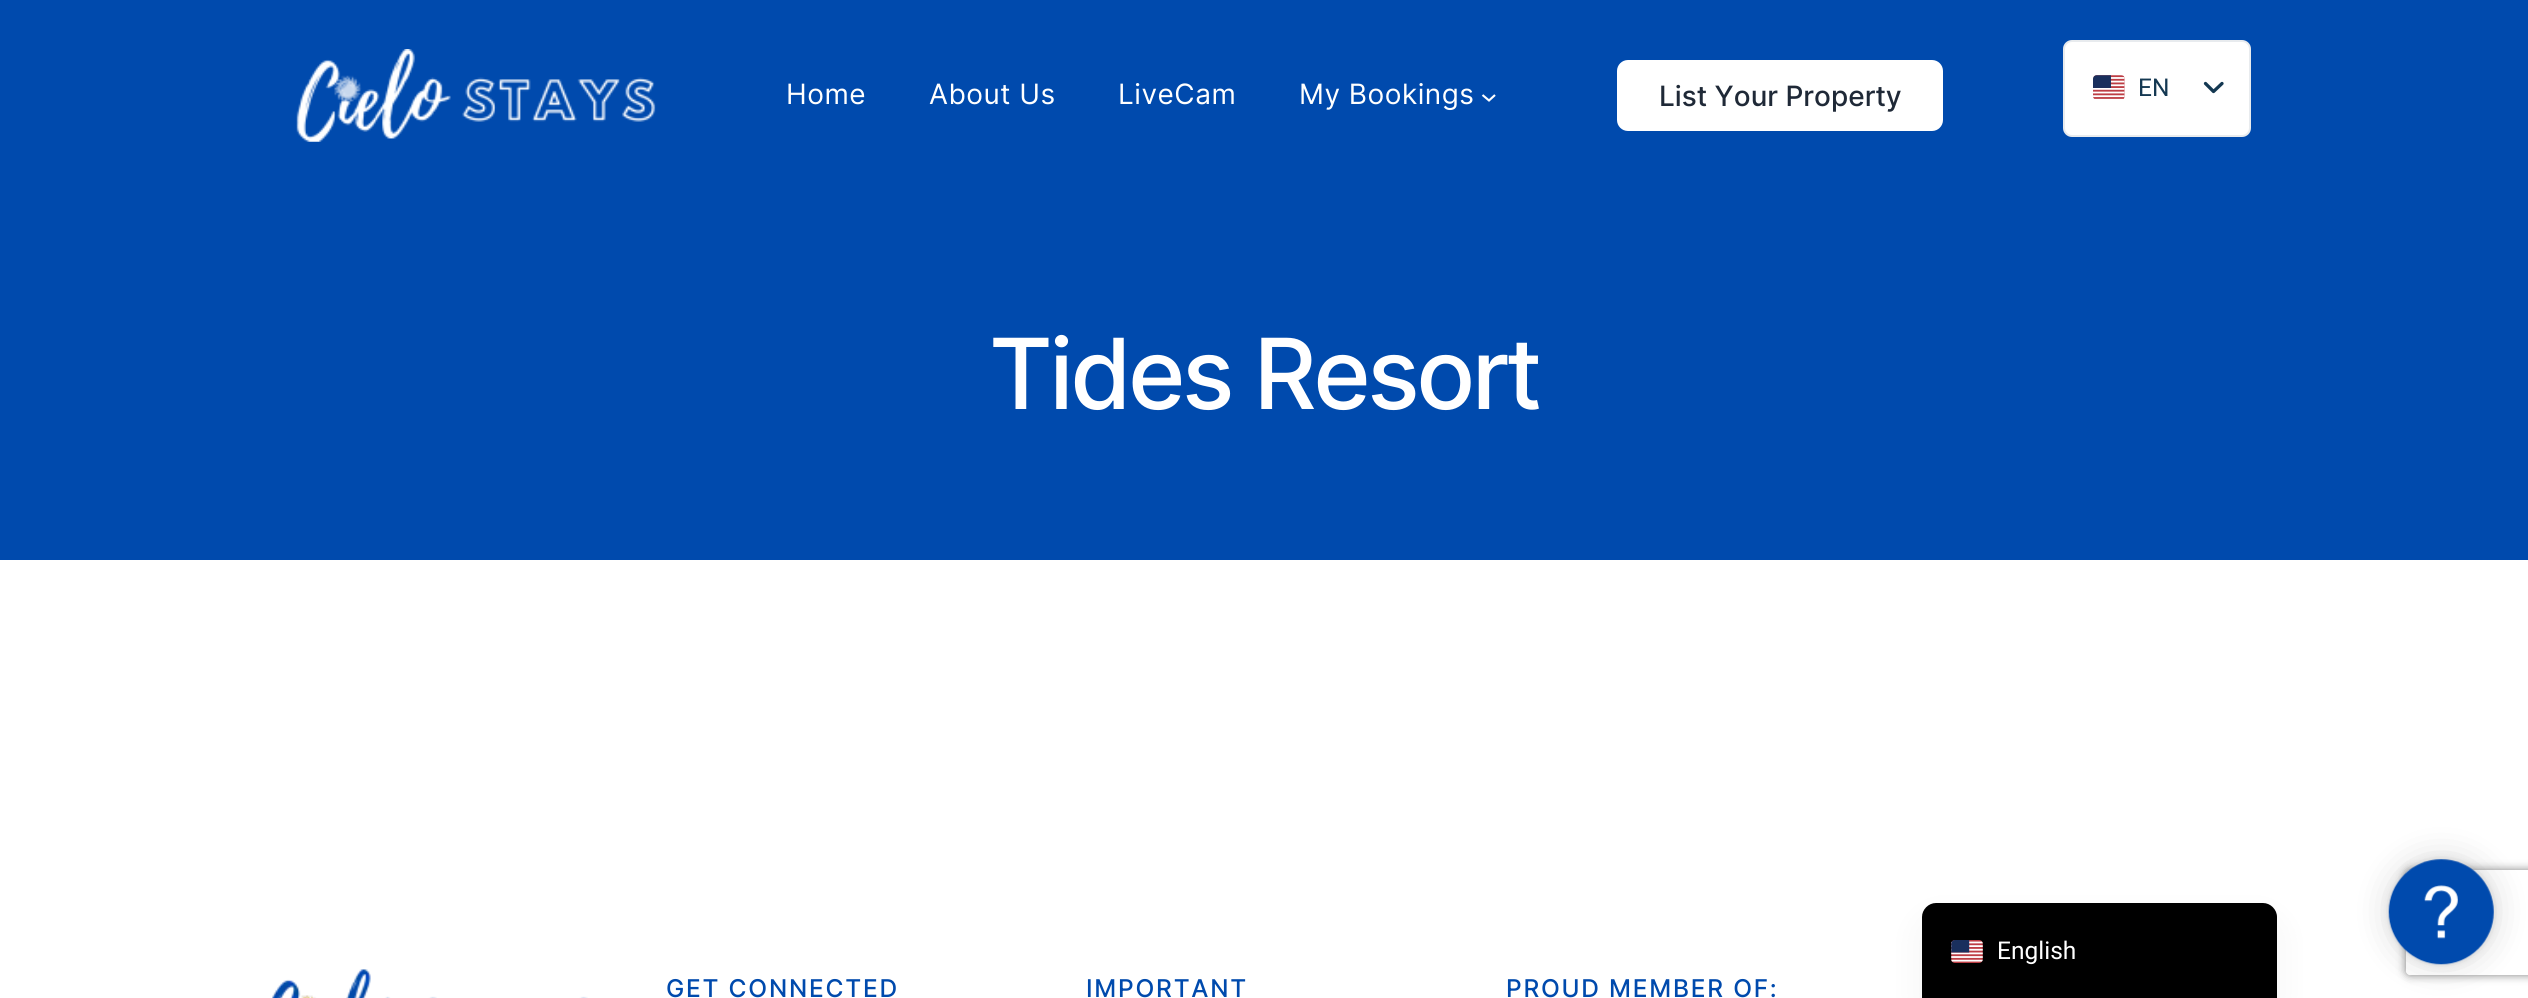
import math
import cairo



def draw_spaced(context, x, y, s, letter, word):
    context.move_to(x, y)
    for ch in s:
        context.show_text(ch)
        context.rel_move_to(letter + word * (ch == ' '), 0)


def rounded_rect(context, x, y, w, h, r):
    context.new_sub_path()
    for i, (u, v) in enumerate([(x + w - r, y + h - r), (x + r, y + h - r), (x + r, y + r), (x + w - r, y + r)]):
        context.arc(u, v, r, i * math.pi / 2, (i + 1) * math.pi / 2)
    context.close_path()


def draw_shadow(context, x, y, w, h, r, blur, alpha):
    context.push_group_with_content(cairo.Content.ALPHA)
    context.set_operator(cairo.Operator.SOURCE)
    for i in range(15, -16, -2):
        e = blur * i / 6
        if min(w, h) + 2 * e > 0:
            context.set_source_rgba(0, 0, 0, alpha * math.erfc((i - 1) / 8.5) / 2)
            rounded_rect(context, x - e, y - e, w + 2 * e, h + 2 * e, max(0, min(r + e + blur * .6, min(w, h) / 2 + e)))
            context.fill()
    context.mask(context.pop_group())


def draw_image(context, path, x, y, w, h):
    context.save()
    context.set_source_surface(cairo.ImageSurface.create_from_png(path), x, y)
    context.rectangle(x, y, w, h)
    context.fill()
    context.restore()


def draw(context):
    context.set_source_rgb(1, 1, 1)
    context.paint()
    context.set_source_rgb(0, 74 / 255, 173 / 255)
    context.rectangle(0, 0, 2528, 560)
    context.fill()
    draw_image(context, "images/1.png", 296, 49, 360, 93)
    context.new_path()
    context.move_to(1482.5, 95)
    context.line_to(1489, 100.5)
    context.line_to(1495, 95)
    context.set_source_rgb(1, 1, 1)
    context.set_line_width(2.1)
    context.stroke()
    rounded_rect(context, 1617, 60, 326, 71, 11)
    context.fill()
    rounded_rect(context, 2063, 40, 188, 97, 9)
    context.fill()
    rounded_rect(context, 2064, 41, 186, 95, 8)
    context.set_source_rgba(20 / 255, 56 / 255, 82 / 255, 0.1)
    context.set_line_width(2)
    context.stroke()
    draw_image(context, "images/2.png", 2093, 75, 32, 24)
    context.new_path()
    context.move_to(2205.5, 83.5)
    context.line_to(2213.5, 91.5)
    context.line_to(2222, 83.5)
    context.set_source_rgb(20 / 255, 56 / 255, 82 / 255)
    context.set_line_width(3.3)
    context.set_line_cap(cairo.LineCap.ROUND)
    context.set_line_join(cairo.LineJoin.ROUND)
    context.stroke()
    draw_image(context, "images/3.png", 272, 969, 316, 29)
    context.set_source_rgb(0, 0, 0)
    draw_shadow(context, 2389, 859, 105, 105, 52.5, 17.5, 0.15)
    draw_shadow(context, 2389, 859, 105, 105, 52.5, 4.5, 0.1)
    context.save()
    context.set_fill_rule(cairo.FillRule.EVEN_ODD)
    context.new_path()
    context.move_to(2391, 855)
    context.line_to(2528, 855)
    context.line_to(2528, 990)
    context.line_to(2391, 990)
    context.close_path()
    context.move_to(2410, 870)
    context.line_to(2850, 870)
    context.curve_to(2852, 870, 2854, 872, 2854, 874)
    context.line_to(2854, 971)
    context.curve_to(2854, 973, 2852, 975, 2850, 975)
    context.line_to(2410, 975)
    context.curve_to(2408, 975, 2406, 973, 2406, 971)
    context.line_to(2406, 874)
    context.curve_to(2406, 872, 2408, 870, 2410, 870)
    context.close_path()
    context.clip()
    context.set_source_rgb(128 / 255, 128 / 255, 128 / 255)
    draw_shadow(context, 2406, 870, 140, 105, 4, 4.5, 1)
    context.restore()
    draw_image(context, "images/4.png", 2388, 859, 106, 106)
    draw_shadow(context, 1922, 921, 355, 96, 14, 17.5, 0.05)
    context.set_source_rgb(0, 0, 0)
    context.new_path()
    context.move_to(1936, 903)
    context.line_to(2263, 903)
    context.curve_to(2270.5, 903, 2277, 909.5, 2277, 917)
    context.line_to(2277, 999)
    context.line_to(1922, 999)
    context.line_to(1922, 917)
    context.curve_to(1922, 909.5, 1928.5, 903, 1936, 903)
    context.close_path()
    context.fill()
    draw_image(context, "images/5.png", 1951, 940, 32, 23)
    context.select_font_face("Inter")
    context.set_font_size(28)
    context.set_source_rgb(1, 1, 1)
    draw_spaced(context, 786, 104, "Home", 0.5, 0)
    draw_spaced(context, 929, 104, "About Us", 0.5, 0)
    draw_spaced(context, 1118, 104, "LiveCam", 0.5, 0)
    draw_spaced(context, 1299, 104, "My Bookings", 0.5, 0)
    context.select_font_face("Inter Medium")
    context.set_source_rgb(31 / 255, 41 / 255, 55 / 255)
    context.move_to(1659, 106)
    context.show_text("List Your Property")
    context.select_font_face("Roboto")
    context.set_font_size(24.5)
    context.set_source_rgb(20 / 255, 56 / 255, 82 / 255)
    context.move_to(2138, 96)
    context.show_text("EN")
    context.select_font_face("Inter Medium")
    context.set_font_size(98)
    context.set_source_rgb(1, 1, 1)
    draw_spaced(context, 989, 409, "Tides Resort", -3.5, 0)
    context.set_font_size(24.5)
    context.set_source_rgb(0, 74 / 255, 173 / 255)
    draw_spaced(context, 666, 997, "GET CONNECTED", 1.75, 0)
    draw_spaced(context, 1086, 997, "IMPORTANT", 1.75, 0)
    draw_spaced(context, 1506, 997, "PROUD MEMBER OF:", 1.75, 0)
    context.select_font_face("Roboto")
    context.set_source_rgb(1, 1, 1)
    context.move_to(1997, 959)
    context.show_text("English")


surface = cairo.ImageSurface(cairo.Format.RGB24, 2528, 998)
context = cairo.Context(surface)
options = cairo.FontOptions()
options.set_hint_metrics(cairo.HintMetrics.OFF)
options.set_hint_style(cairo.HintStyle.NONE)
context.set_font_options(options)
context.set_miter_limit(4)
draw(context)
surface.write_to_png("out.png")
